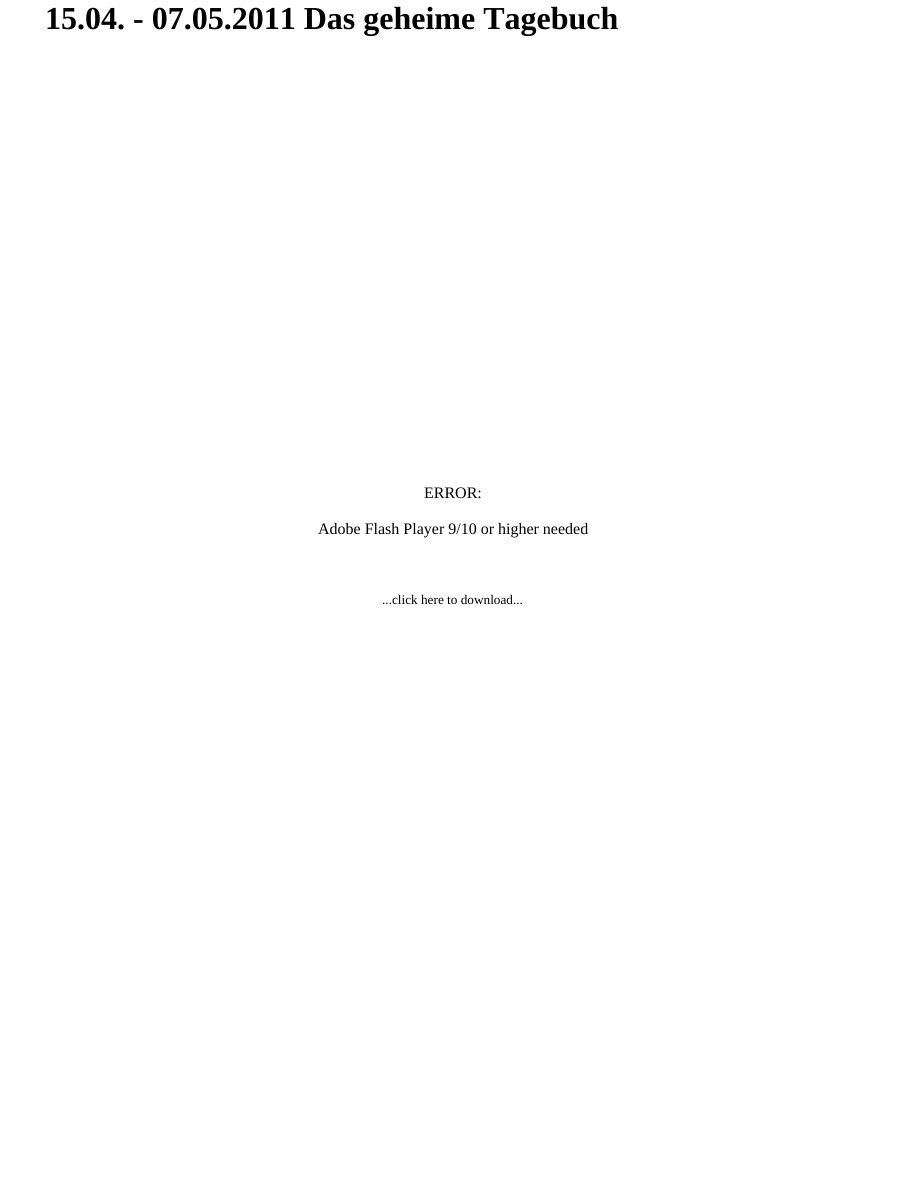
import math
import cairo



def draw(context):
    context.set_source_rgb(1, 1, 1)
    context.paint()
    context.select_font_face("Liberation Serif", cairo.FontSlant.NORMAL, cairo.FontWeight.BOLD)
    context.set_font_size(32)
    context.set_source_rgb(0, 0, 0)
    context.move_to(45, 29)
    context.show_text("15.04. - 07.05.2011 Das geheime Tagebuch")
    context.select_font_face("Liberation Serif")
    context.set_font_size(16)
    context.move_to(424, 498)
    context.show_text("ERROR:")
    context.move_to(318, 534)
    context.show_text("Adobe Flash Player 9/10 or higher needed")
    context.set_font_size(13.25)
    context.move_to(382, 604)
    context.show_text("...click here to download...")


surface = cairo.ImageSurface(cairo.Format.RGB24, 906, 1191)
context = cairo.Context(surface)
options = cairo.FontOptions()
options.set_hint_metrics(cairo.HintMetrics.OFF)
options.set_hint_style(cairo.HintStyle.NONE)
context.set_font_options(options)
context.set_miter_limit(4)
draw(context)
surface.write_to_png("out.png")
